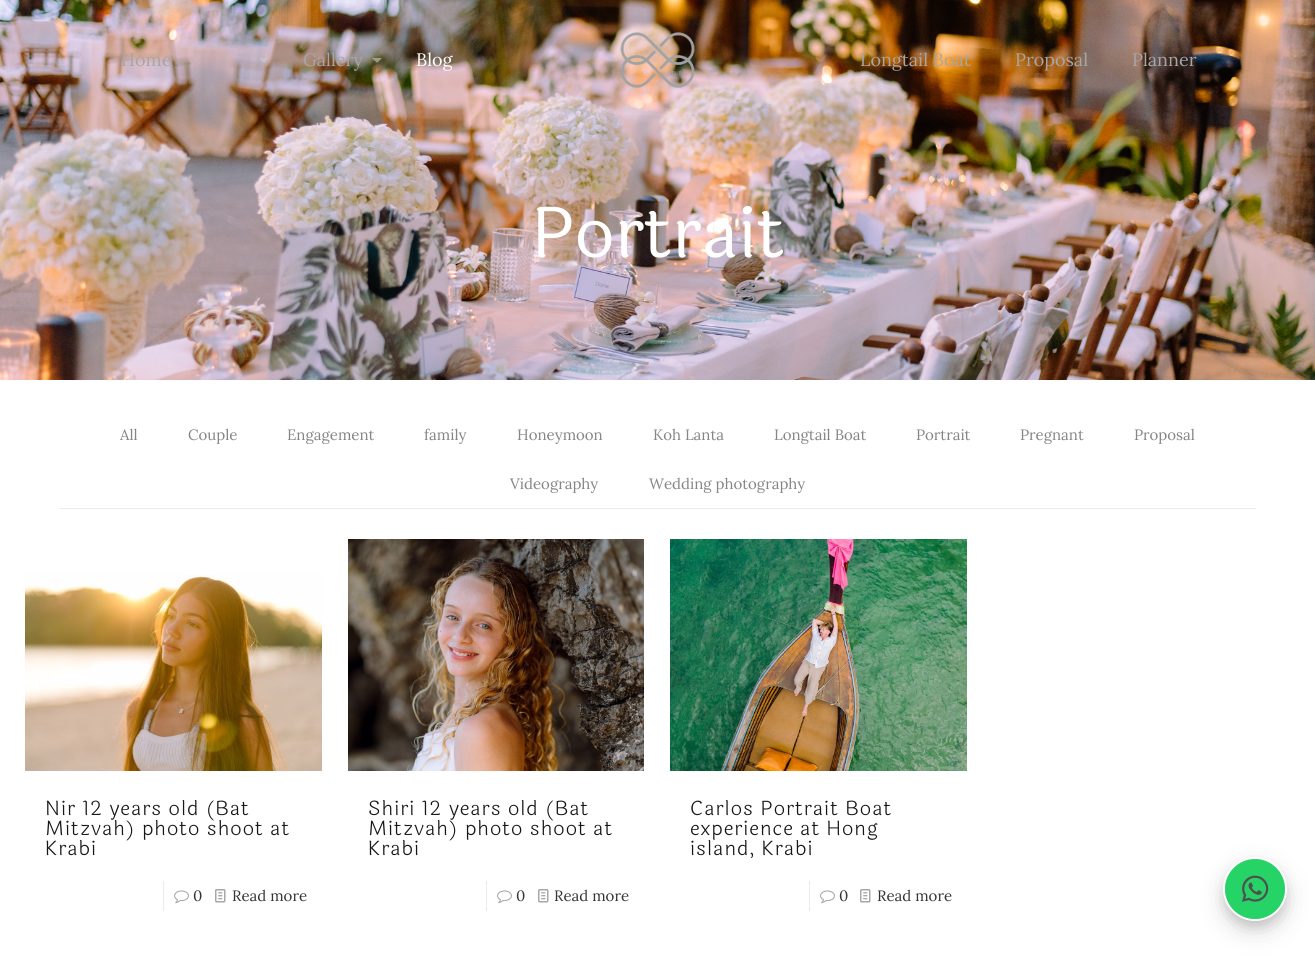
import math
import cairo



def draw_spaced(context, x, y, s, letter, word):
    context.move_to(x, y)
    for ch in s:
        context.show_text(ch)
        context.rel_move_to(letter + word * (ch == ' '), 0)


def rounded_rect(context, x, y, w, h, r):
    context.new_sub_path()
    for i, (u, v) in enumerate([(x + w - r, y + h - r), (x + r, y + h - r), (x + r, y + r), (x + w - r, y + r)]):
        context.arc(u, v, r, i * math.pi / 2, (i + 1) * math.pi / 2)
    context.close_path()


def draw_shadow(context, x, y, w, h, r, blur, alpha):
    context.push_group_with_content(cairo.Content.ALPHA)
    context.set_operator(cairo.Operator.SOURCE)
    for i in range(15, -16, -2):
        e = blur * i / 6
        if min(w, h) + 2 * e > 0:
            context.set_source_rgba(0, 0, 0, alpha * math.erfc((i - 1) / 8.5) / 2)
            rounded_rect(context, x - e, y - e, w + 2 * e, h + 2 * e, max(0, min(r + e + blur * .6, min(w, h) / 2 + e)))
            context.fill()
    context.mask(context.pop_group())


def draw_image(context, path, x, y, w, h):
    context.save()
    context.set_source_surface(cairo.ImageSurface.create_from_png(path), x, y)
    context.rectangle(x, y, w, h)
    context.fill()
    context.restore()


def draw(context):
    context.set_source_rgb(1, 1, 1)
    context.paint()
    draw_image(context, "images/2.png", 0, 0, 1315, 380)
    draw_image(context, "images/1.png", 620, 32, 75, 56)
    context.set_source_rgba(204 / 255, 204 / 255, 204 / 255, 0.6)
    context.new_path()
    context.move_to(259, 58)
    context.line_to(269, 58)
    context.line_to(264, 63)
    context.close_path()
    context.fill()
    context.new_path()
    context.move_to(372, 58)
    context.line_to(382, 58)
    context.line_to(377, 63)
    context.close_path()
    context.fill()
    context.set_source_rgb(235 / 255, 235 / 255, 235 / 255)
    context.rectangle(60, 508, 1196, 1)
    context.fill()
    draw_image(context, "images/3.png", 25, 574, 297, 197)
    context.rectangle(163, 881, 1, 30)
    context.fill()
    draw_image(context, "images/4.png", 174, 890, 15, 14)
    draw_image(context, "images/5.png", 215, 889, 11, 14)
    draw_image(context, "images/6.png", 348, 539, 296, 232)
    context.rectangle(486, 881, 1, 30)
    context.fill()
    draw_image(context, "images/4.png", 497, 890, 15, 14)
    draw_image(context, "images/5.png", 538, 889, 11, 14)
    draw_image(context, "images/7.png", 670, 539, 297, 232)
    context.rectangle(809, 881, 1, 30)
    context.fill()
    draw_image(context, "images/4.png", 820, 890, 15, 14)
    draw_image(context, "images/5.png", 860, 889, 11, 14)
    context.set_source_rgb(0, 0, 0)
    draw_shadow(context, 1225, 865, 60, 60, 30, 6, 0.12)
    draw_shadow(context, 1225, 869, 60, 60, 30, 12, 0.18)
    context.arc(1255, 889, 31, 0, 2 * math.pi)
    context.set_source_rgb(1, 1, 1)
    context.stroke()
    context.set_source_rgb(37 / 255, 211 / 255, 102 / 255)
    context.arc(1255, 889, 30, 0, 2 * math.pi)
    context.fill()
    draw_image(context, "images/8.png", 1242, 875, 27, 27)
    context.select_font_face("Lora")
    context.set_font_size(18)
    context.set_source_rgb(166 / 255, 166 / 255, 166 / 255)
    context.move_to(121, 66)
    context.show_text("Home")
    context.move_to(303, 66)
    context.show_text("Gallery")
    context.set_source_rgb(1, 1, 1)
    context.move_to(416, 66)
    context.show_text("Blog")
    context.set_source_rgb(166 / 255, 166 / 255, 166 / 255)
    context.move_to(860, 66)
    context.show_text("Longtail Boat")
    context.move_to(1015, 66)
    context.show_text("Proposal")
    context.move_to(1132, 66)
    context.show_text("Planner")
    context.select_font_face("Laila")
    context.set_font_size(70)
    context.set_source_rgb(1, 1, 1)
    context.move_to(531, 257)
    context.show_text("Portrait")
    context.select_font_face("Lora")
    context.set_font_size(15)
    context.set_source_rgb(133 / 255, 133 / 255, 133 / 255)
    context.move_to(120, 440)
    context.show_text("All")
    context.move_to(188, 440)
    context.show_text("Couple")
    context.move_to(287, 440)
    context.show_text("Engagement")
    context.move_to(424, 440)
    context.show_text("family")
    context.move_to(517, 440)
    context.show_text("Honeymoon")
    context.move_to(653, 440)
    context.show_text("Koh Lanta")
    context.move_to(774, 440)
    context.show_text("Longtail Boat")
    context.move_to(916, 440)
    context.show_text("Portrait")
    context.move_to(1020, 440)
    context.show_text("Pregnant")
    context.move_to(1134, 440)
    context.show_text("Proposal")
    context.move_to(510, 489)
    context.show_text("Videography")
    context.move_to(649, 489)
    context.show_text("Wedding photography")
    context.select_font_face("Laila Light")
    context.set_font_size(20)
    context.set_source_rgb(23 / 255, 23 / 255, 23 / 255)
    draw_spaced(context, 45, 815, "Nir 12 years old (Bat", 1, 0)
    draw_spaced(context, 45, 835, "Mitzvah) photo shoot at", 1, 0)
    draw_spaced(context, 45, 855, "Krabi", 1, 0)
    context.select_font_face("Lora")
    context.set_font_size(15)
    context.set_source_rgb(53 / 255, 53 / 255, 53 / 255)
    context.move_to(193, 901)
    context.show_text("0")
    context.move_to(232, 901)
    context.show_text("Read more")
    context.select_font_face("Laila Light")
    context.set_font_size(20)
    context.set_source_rgb(23 / 255, 23 / 255, 23 / 255)
    draw_spaced(context, 368, 815, "Shiri 12 years old (Bat", 1, 0)
    draw_spaced(context, 368, 835, "Mitzvah) photo shoot at", 1, 0)
    draw_spaced(context, 368, 855, "Krabi", 1, 0)
    context.select_font_face("Lora")
    context.set_font_size(15)
    context.set_source_rgb(53 / 255, 53 / 255, 53 / 255)
    context.move_to(516, 901)
    context.show_text("0")
    context.move_to(554, 901)
    context.show_text("Read more")
    context.select_font_face("Laila Light")
    context.set_font_size(20)
    context.set_source_rgb(23 / 255, 23 / 255, 23 / 255)
    draw_spaced(context, 690, 815, "Carlos Portrait Boat", 1, 0)
    draw_spaced(context, 690, 835, "experience at Hong", 1, 0)
    draw_spaced(context, 690, 855, "island, Krabi", 1, 0)
    context.select_font_face("Lora")
    context.set_font_size(15)
    context.set_source_rgb(53 / 255, 53 / 255, 53 / 255)
    context.move_to(839, 901)
    context.show_text("0")
    context.move_to(877, 901)
    context.show_text("Read more")


surface = cairo.ImageSurface(cairo.Format.RGB24, 1315, 970)
context = cairo.Context(surface)
options = cairo.FontOptions()
options.set_hint_metrics(cairo.HintMetrics.OFF)
options.set_hint_style(cairo.HintStyle.NONE)
context.set_font_options(options)
context.set_miter_limit(4)
draw(context)
surface.write_to_png("out.png")
